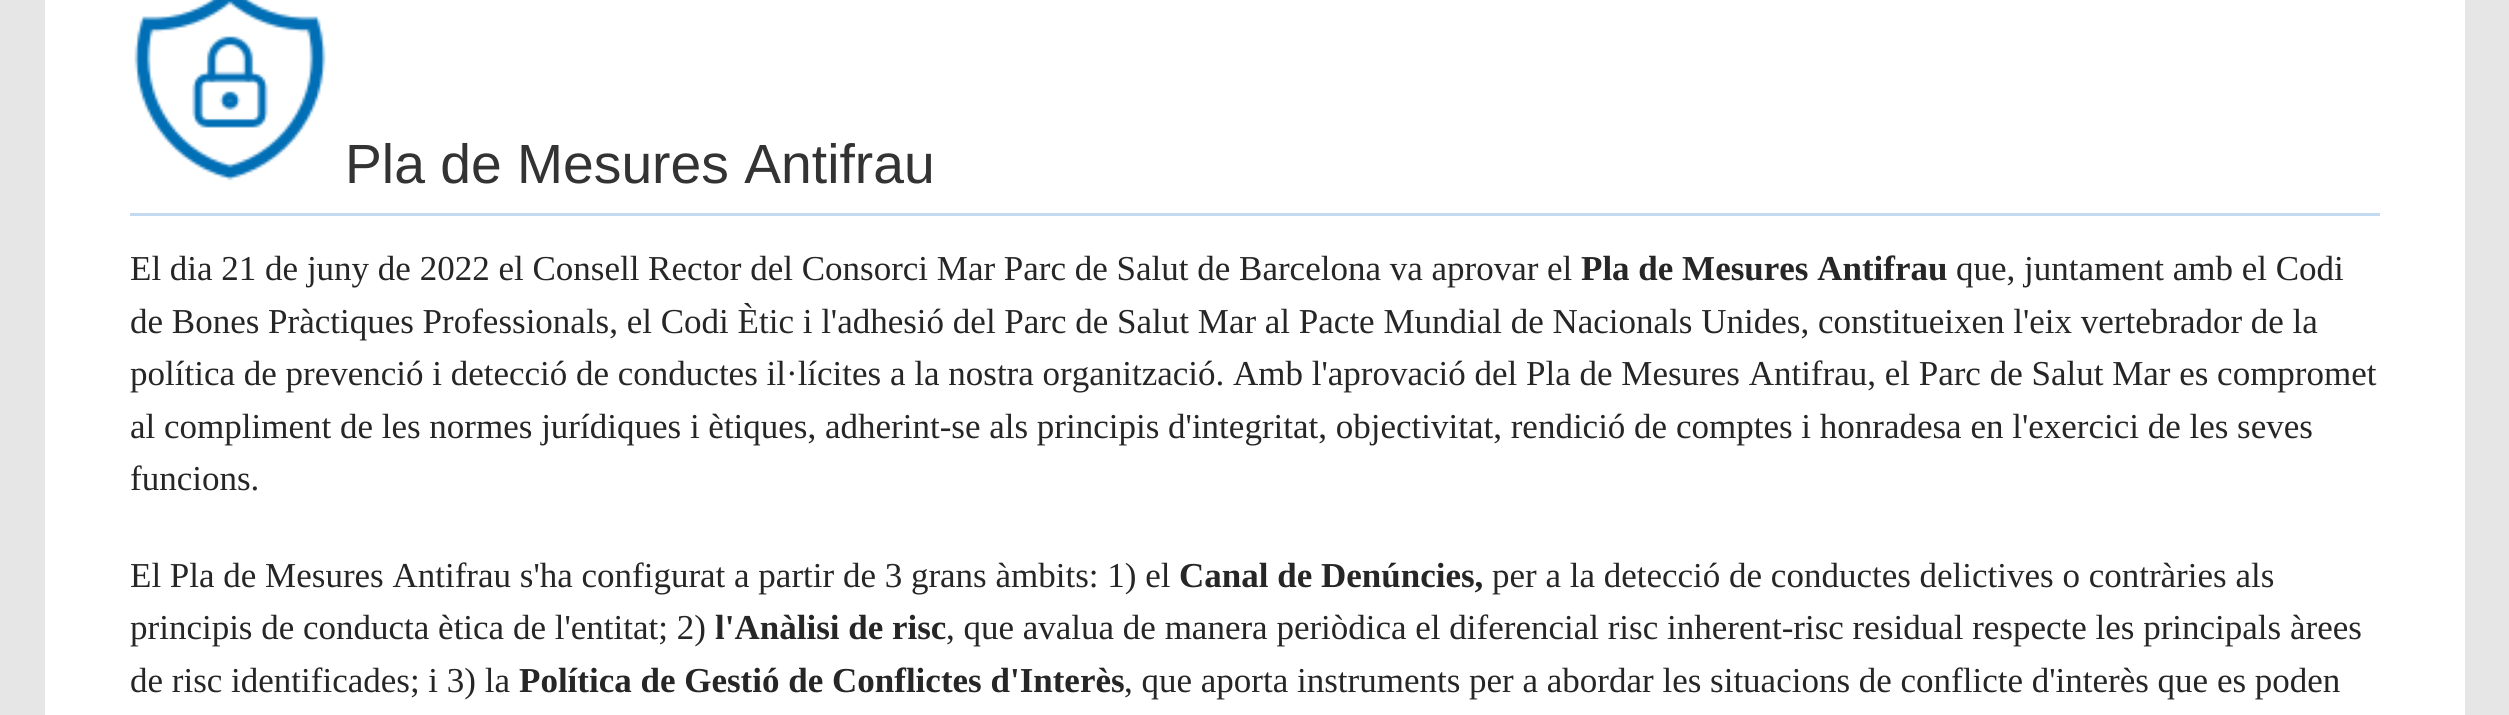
import math
import cairo



def draw_image(context, path, x, y, w, h):
    context.save()
    context.set_source_surface(cairo.ImageSurface.create_from_png(path), x, y)
    context.rectangle(x, y, w, h)
    context.fill()
    context.restore()


def draw(context):
    context.set_source_rgb(230 / 255, 230 / 255, 230 / 255)
    context.paint()
    context.set_source_rgb(1, 1, 1)
    context.rectangle(45, 0, 2420, 715)
    context.fill()
    context.set_source_rgb(195 / 255, 218 / 255, 241 / 255)
    context.rectangle(130, 213, 2250, 3)
    context.fill()
    draw_image(context, "images/1.png", 134, 0, 192, 181)
    context.select_font_face("Liberation Sans")
    context.set_font_size(55.25)
    context.set_source_rgb(51 / 255, 51 / 255, 51 / 255)
    context.move_to(345, 183)
    context.show_text("Pla de Mesures Antifrau")
    context.select_font_face("Liberation Serif")
    context.set_font_size(35)
    context.set_source_rgb(38 / 255, 38 / 255, 38 / 255)
    context.move_to(130, 280)
    context.show_text("El dia 21 de juny de 2022 el Consell Rector del Consorci Mar Parc de Salut de Barcelona va aprovar el")
    context.select_font_face("Liberation Serif", cairo.FontSlant.NORMAL, cairo.FontWeight.BOLD)
    context.move_to(1581, 280)
    context.show_text("Pla de Mesures Antifrau")
    context.select_font_face("Liberation Serif")
    context.move_to(1956, 280)
    context.show_text("que, juntament amb el Codi")
    context.move_to(130, 333)
    context.show_text("de Bones Pràctiques Professionals, el Codi Ètic i l'adhesió del Parc de Salut Mar al Pacte Mundial de Nacionals Unides, constitueixen l'eix vertebrador de la")
    context.move_to(130, 385)
    context.show_text("política de prevenció i detecció de conductes il·lícites a la nostra organització. Amb l'aprovació del Pla de Mesures Antifrau, el Parc de Salut Mar es compromet")
    context.move_to(130, 438)
    context.show_text("al compliment de les normes jurídiques i ètiques, adherint-se als principis d'integritat, objectivitat, rendició de comptes i honradesa en l'exercici de les seves")
    context.move_to(130, 490)
    context.show_text("funcions.")
    context.move_to(130, 587)
    context.show_text("El Pla de Mesures Antifrau s'ha configurat a partir de 3 grans àmbits: 1) el")
    context.select_font_face("Liberation Serif", cairo.FontSlant.NORMAL, cairo.FontWeight.BOLD)
    context.move_to(1179, 587)
    context.show_text("Canal de Denúncies,")
    context.select_font_face("Liberation Serif")
    context.move_to(1492, 587)
    context.show_text("per a la detecció de conductes delictives o contràries als")
    context.move_to(130, 639)
    context.show_text("principis de conducta ètica de l'entitat; 2)")
    context.select_font_face("Liberation Serif", cairo.FontSlant.NORMAL, cairo.FontWeight.BOLD)
    context.move_to(715, 639)
    context.show_text("l'Anàlisi de risc")
    context.select_font_face("Liberation Serif")
    context.move_to(946, 639)
    context.show_text(", que avalua de manera periòdica el diferencial risc inherent-risc residual respecte les principals àrees")
    context.move_to(130, 692)
    context.show_text("de risc identificades; i 3) la")
    context.select_font_face("Liberation Serif", cairo.FontSlant.NORMAL, cairo.FontWeight.BOLD)
    context.move_to(519, 692)
    context.show_text("Política de Gestió de Conflictes d'Interès")
    context.select_font_face("Liberation Serif")
    context.move_to(1124, 692)
    context.show_text(", que aporta instruments per a abordar les situacions de conflicte d'interès que es poden")


surface = cairo.ImageSurface(cairo.Format.RGB24, 2509, 715)
context = cairo.Context(surface)
options = cairo.FontOptions()
options.set_hint_metrics(cairo.HintMetrics.OFF)
options.set_hint_style(cairo.HintStyle.NONE)
context.set_font_options(options)
context.set_miter_limit(4)
draw(context)
surface.write_to_png("out.png")
